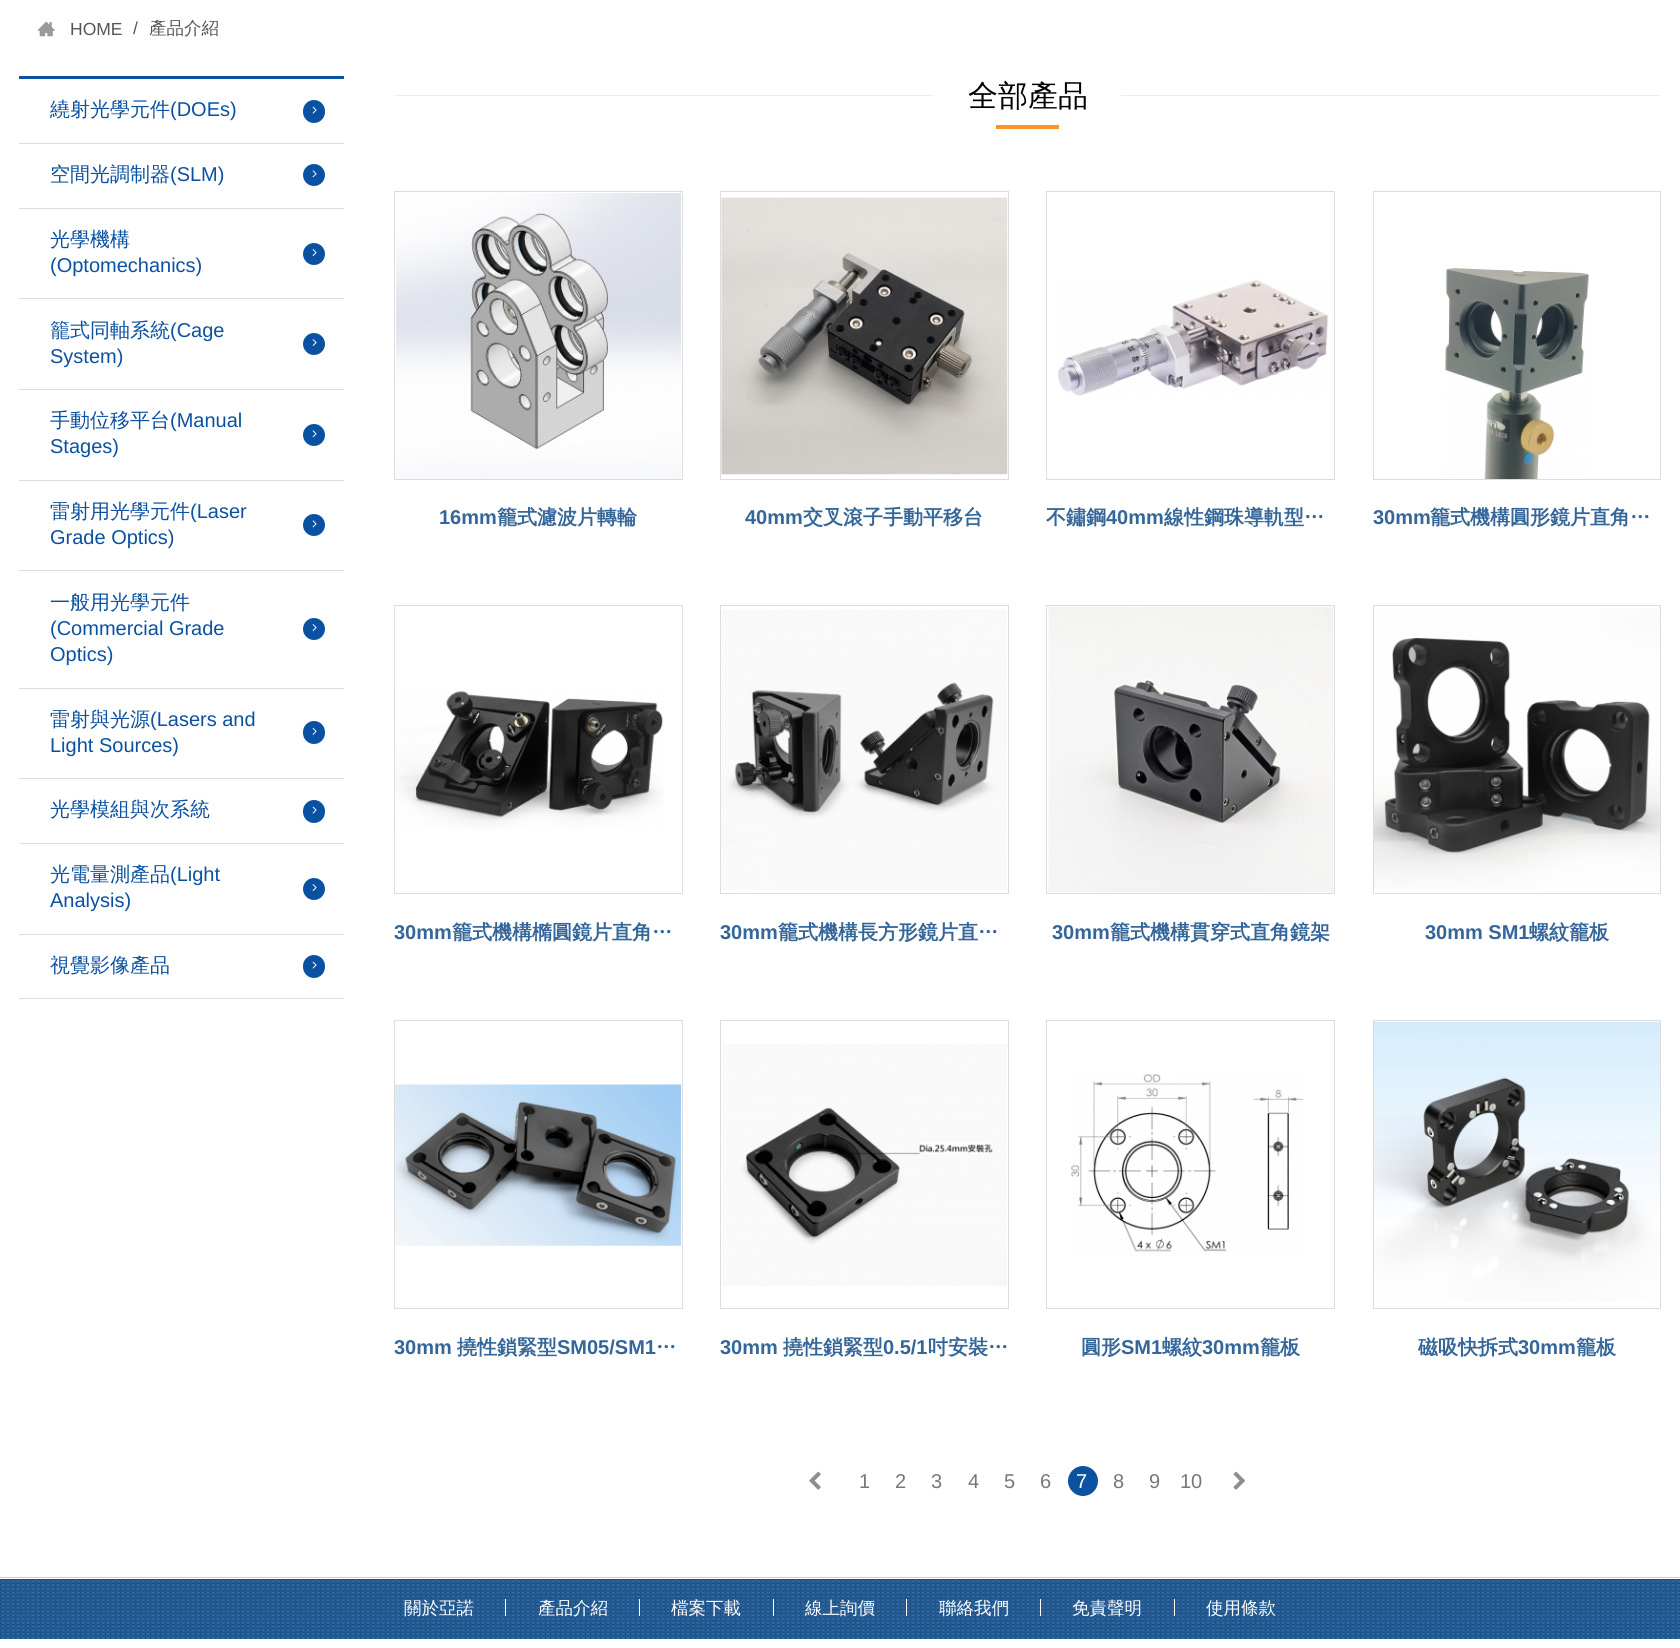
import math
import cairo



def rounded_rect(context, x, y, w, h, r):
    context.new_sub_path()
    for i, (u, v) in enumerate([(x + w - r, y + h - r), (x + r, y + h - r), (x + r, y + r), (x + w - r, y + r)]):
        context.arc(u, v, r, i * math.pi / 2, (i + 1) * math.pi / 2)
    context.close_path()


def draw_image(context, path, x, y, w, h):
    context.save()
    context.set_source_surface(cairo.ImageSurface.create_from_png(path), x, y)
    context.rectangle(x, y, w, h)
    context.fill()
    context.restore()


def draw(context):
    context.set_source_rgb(1, 1, 1)
    context.paint()
    draw_image(context, "images/1.png", 37, 21, 18, 16)
    context.set_source_rgb(10 / 255, 81 / 255, 161 / 255)
    context.rectangle(19, 76, 325, 3)
    context.fill()
    context.set_source_rgb(221 / 255, 221 / 255, 221 / 255)
    context.rectangle(19, 143, 325, 1)
    context.fill()
    context.set_source_rgb(10 / 255, 81 / 255, 161 / 255)
    rounded_rect(context, 303, 100, 22, 23, 11)
    context.fill()
    draw_image(context, "images/2.png", 312, 106, 5, 8)
    context.set_source_rgb(221 / 255, 221 / 255, 221 / 255)
    context.rectangle(19, 208, 325, 1)
    context.fill()
    context.set_source_rgb(10 / 255, 81 / 255, 161 / 255)
    context.arc(314, 175, 11, 0, 2 * math.pi)
    context.fill()
    draw_image(context, "images/3.png", 312, 170, 5, 8)
    context.set_source_rgb(221 / 255, 221 / 255, 221 / 255)
    context.rectangle(19, 298, 325, 1)
    context.fill()
    context.set_source_rgb(10 / 255, 81 / 255, 161 / 255)
    context.arc(314, 254, 11, 0, 2 * math.pi)
    context.fill()
    draw_image(context, "images/4.png", 312, 249, 5, 7)
    context.set_source_rgb(221 / 255, 221 / 255, 221 / 255)
    context.rectangle(19, 389, 325, 1)
    context.fill()
    context.set_source_rgb(10 / 255, 81 / 255, 161 / 255)
    context.arc(314, 344, 11, 0, 2 * math.pi)
    context.fill()
    draw_image(context, "images/4.png", 312, 339, 5, 7)
    context.set_source_rgb(221 / 255, 221 / 255, 221 / 255)
    context.rectangle(19, 480, 325, 1)
    context.fill()
    context.set_source_rgb(10 / 255, 81 / 255, 161 / 255)
    context.arc(314, 435, 11, 0, 2 * math.pi)
    context.fill()
    draw_image(context, "images/3.png", 312, 430, 5, 8)
    context.set_source_rgb(221 / 255, 221 / 255, 221 / 255)
    context.rectangle(19, 570, 325, 1)
    context.fill()
    context.set_source_rgb(10 / 255, 81 / 255, 161 / 255)
    context.arc(314, 525, 11, 0, 2 * math.pi)
    context.fill()
    draw_image(context, "images/3.png", 312, 520, 5, 8)
    context.set_source_rgb(221 / 255, 221 / 255, 221 / 255)
    context.rectangle(19, 688, 325, 1)
    context.fill()
    context.set_source_rgb(10 / 255, 81 / 255, 161 / 255)
    context.arc(314, 629, 11, 0, 2 * math.pi)
    context.fill()
    draw_image(context, "images/4.png", 312, 624, 5, 7)
    context.set_source_rgb(221 / 255, 221 / 255, 221 / 255)
    context.rectangle(19, 778, 325, 1)
    context.fill()
    context.set_source_rgb(10 / 255, 81 / 255, 161 / 255)
    rounded_rect(context, 303, 721, 22, 23, 11)
    context.fill()
    draw_image(context, "images/5.png", 312, 727, 5, 8)
    context.set_source_rgb(221 / 255, 221 / 255, 221 / 255)
    context.rectangle(19, 843, 325, 1)
    context.fill()
    context.set_source_rgb(10 / 255, 81 / 255, 161 / 255)
    rounded_rect(context, 303, 800, 22, 23, 11)
    context.fill()
    draw_image(context, "images/2.png", 312, 806, 5, 8)
    context.set_source_rgb(221 / 255, 221 / 255, 221 / 255)
    context.rectangle(19, 934, 325, 1)
    context.fill()
    context.set_source_rgb(10 / 255, 81 / 255, 161 / 255)
    context.arc(314, 889, 11, 0, 2 * math.pi)
    context.fill()
    draw_image(context, "images/4.png", 312, 884, 5, 7)
    context.set_source_rgb(221 / 255, 221 / 255, 221 / 255)
    context.rectangle(19, 998, 325, 1)
    context.fill()
    context.set_source_rgb(10 / 255, 81 / 255, 161 / 255)
    rounded_rect(context, 303, 955, 22, 23, 11)
    context.fill()
    draw_image(context, "images/2.png", 312, 961, 5, 8)
    context.set_source_rgb(238 / 255, 238 / 255, 238 / 255)
    context.rectangle(394, 95, 1267, 1)
    context.fill()
    context.set_source_rgb(1, 1, 1)
    context.rectangle(934, 95, 187, 1)
    context.fill()
    context.set_source_rgb(1, 147 / 255, 38 / 255)
    context.rectangle(996, 125, 63, 4)
    context.fill()
    context.rectangle(394.5, 191.5, 288, 288)
    context.set_source_rgb(221 / 255, 221 / 255, 221 / 255)
    context.set_line_width(1)
    context.stroke()
    draw_image(context, "images/6.png", 396, 193, 285, 286)
    context.rectangle(720.5, 191.5, 288, 288)
    context.stroke()
    draw_image(context, "images/7.png", 721, 197, 287, 278)
    context.rectangle(1046.5, 191.5, 288, 288)
    context.stroke()
    draw_image(context, "images/8.png", 1058, 279, 271, 117)
    context.rectangle(1373.5, 191.5, 287, 288)
    context.stroke()
    draw_image(context, "images/9.png", 1445, 268, 145, 211)
    context.rectangle(394.5, 605.5, 288, 288)
    context.stroke()
    draw_image(context, "images/10.png", 395, 691, 269, 139)
    context.rectangle(720.5, 605.5, 288, 288)
    context.stroke()
    draw_image(context, "images/11.png", 721, 610, 286, 280)
    context.rectangle(1046.5, 605.5, 288, 288)
    context.stroke()
    draw_image(context, "images/12.png", 1048, 606, 286, 287)
    context.rectangle(1373.5, 605.5, 287, 288)
    context.stroke()
    draw_image(context, "images/13.png", 1374, 608, 286, 281)
    context.rectangle(394.5, 1020.5, 288, 288)
    context.stroke()
    draw_image(context, "images/14.png", 395, 1084, 287, 162)
    context.rectangle(720.5, 1020.5, 288, 288)
    context.stroke()
    draw_image(context, "images/15.png", 722, 1044, 285, 242)
    context.rectangle(1046.5, 1020.5, 288, 288)
    context.stroke()
    draw_image(context, "images/16.png", 1071, 1074, 233, 178)
    context.rectangle(1373.5, 1020.5, 287, 288)
    context.stroke()
    draw_image(context, "images/17.png", 1374, 1021, 286, 281)
    draw_image(context, "images/18.png", 809, 1471, 12, 19)
    context.set_source_rgb(11 / 255, 82 / 255, 161 / 255)
    context.arc(1083, 1481, 15, 0, 2 * math.pi)
    context.fill()
    draw_image(context, "images/19.png", 1233, 1471, 12, 19)
    draw_image(context, "images/20.png", 0, 1577, 1680, 62)
    context.set_source_rgb(1, 1, 1)
    context.rectangle(0, 1578, 1680, 1)
    context.fill()
    context.rectangle(505, 1599, 1, 17)
    context.fill()
    context.rectangle(639, 1599, 1, 17)
    context.fill()
    context.rectangle(773, 1599, 1, 17)
    context.fill()
    context.rectangle(906, 1599, 1, 17)
    context.fill()
    context.rectangle(1040, 1599, 1, 17)
    context.fill()
    context.rectangle(1174, 1599, 1, 17)
    context.fill()
    context.select_font_face("Liberation Sans")
    context.set_font_size(17.5)
    context.set_source_rgb(85 / 255, 85 / 255, 85 / 255)
    context.move_to(70, 35)
    context.show_text("HOME")
    context.move_to(133, 34)
    context.show_text("/")
    context.select_font_face("WenQuanYi Zen Hei Medium")
    context.move_to(149, 34)
    context.show_text("產品介紹")
    context.set_font_size(20)
    context.set_source_rgb(10 / 255, 81 / 255, 161 / 255)
    context.move_to(50, 116)
    context.show_text("繞射光學元件")
    context.select_font_face("Liberation Sans")
    context.move_to(170, 116)
    context.show_text("(DOEs)")
    context.select_font_face("WenQuanYi Zen Hei Medium")
    context.move_to(50, 181)
    context.show_text("空間光調制器")
    context.select_font_face("Liberation Sans")
    context.move_to(170, 181)
    context.show_text("(SLM)")
    context.select_font_face("WenQuanYi Zen Hei Medium")
    context.move_to(50, 246)
    context.show_text("光學機構")
    context.select_font_face("Liberation Sans")
    context.move_to(50, 272)
    context.show_text("(Optomechanics)")
    context.select_font_face("WenQuanYi Zen Hei Medium")
    context.move_to(50, 337)
    context.show_text("籠式同軸系統")
    context.select_font_face("Liberation Sans")
    context.move_to(170, 337)
    context.show_text("(Cage")
    context.move_to(50, 363)
    context.show_text("System)")
    context.select_font_face("WenQuanYi Zen Hei Medium")
    context.move_to(50, 427)
    context.show_text("手動位移平台")
    context.select_font_face("Liberation Sans")
    context.move_to(170, 427)
    context.show_text("(Manual")
    context.move_to(50, 453)
    context.show_text("Stages)")
    context.select_font_face("WenQuanYi Zen Hei Medium")
    context.move_to(50, 518)
    context.show_text("雷射用光學元件")
    context.select_font_face("Liberation Sans")
    context.move_to(190, 518)
    context.show_text("(Laser")
    context.move_to(50, 544)
    context.show_text("Grade Optics)")
    context.select_font_face("WenQuanYi Zen Hei Medium")
    context.move_to(50, 609)
    context.show_text("一般用光學元件")
    context.select_font_face("Liberation Sans")
    context.move_to(50, 635)
    context.show_text("(Commercial Grade")
    context.move_to(50, 661)
    context.show_text("Optics)")
    context.select_font_face("WenQuanYi Zen Hei Medium")
    context.move_to(50, 726)
    context.show_text("雷射與光源")
    context.select_font_face("Liberation Sans")
    context.move_to(150, 726)
    context.show_text("(Lasers and")
    context.move_to(50, 752)
    context.show_text("Light Sources)")
    context.select_font_face("WenQuanYi Zen Hei Medium")
    context.move_to(50, 816)
    context.show_text("光學模組與次系統")
    context.move_to(50, 881)
    context.show_text("光電量測產品")
    context.select_font_face("Liberation Sans")
    context.move_to(170, 881)
    context.show_text("(Light")
    context.move_to(50, 907)
    context.show_text("Analysis)")
    context.select_font_face("WenQuanYi Zen Hei Medium")
    context.move_to(50, 972)
    context.show_text("視覺影像產品")
    context.set_font_size(30)
    context.set_source_rgb(0, 0, 0)
    context.move_to(968, 106)
    context.show_text("全部產品")
    context.select_font_face("Liberation Sans", cairo.FontSlant.NORMAL, cairo.FontWeight.BOLD)
    context.set_font_size(20)
    context.set_source_rgb(52 / 255, 102 / 255, 153 / 255)
    context.move_to(439, 524)
    context.show_text("16mm")
    context.select_font_face("WenQuanYi Zen Hei", cairo.FontSlant.NORMAL, cairo.FontWeight.BOLD)
    context.move_to(497, 524)
    context.show_text("籠式濾波片轉輪")
    context.select_font_face("Liberation Sans", cairo.FontSlant.NORMAL, cairo.FontWeight.BOLD)
    context.move_to(745, 524)
    context.show_text("40mm")
    context.select_font_face("WenQuanYi Zen Hei", cairo.FontSlant.NORMAL, cairo.FontWeight.BOLD)
    context.move_to(803, 524)
    context.show_text("交叉滾子手動平移台")
    context.move_to(1046, 524)
    context.show_text("不鏽鋼")
    context.select_font_face("Liberation Sans", cairo.FontSlant.NORMAL, cairo.FontWeight.BOLD)
    context.move_to(1106, 524)
    context.show_text("40mm")
    context.select_font_face("WenQuanYi Zen Hei", cairo.FontSlant.NORMAL, cairo.FontWeight.BOLD)
    context.move_to(1164, 524)
    context.show_text("線性鋼珠導軌型…")
    context.select_font_face("Liberation Sans", cairo.FontSlant.NORMAL, cairo.FontWeight.BOLD)
    context.move_to(1373, 524)
    context.show_text("30mm")
    context.select_font_face("WenQuanYi Zen Hei", cairo.FontSlant.NORMAL, cairo.FontWeight.BOLD)
    context.move_to(1430, 524)
    context.show_text("籠式機構圓形鏡片直角…")
    context.select_font_face("Liberation Sans", cairo.FontSlant.NORMAL, cairo.FontWeight.BOLD)
    context.move_to(394, 939)
    context.show_text("30mm")
    context.select_font_face("WenQuanYi Zen Hei", cairo.FontSlant.NORMAL, cairo.FontWeight.BOLD)
    context.move_to(452, 939)
    context.show_text("籠式機構橢圓鏡片直角…")
    context.select_font_face("Liberation Sans", cairo.FontSlant.NORMAL, cairo.FontWeight.BOLD)
    context.move_to(720, 939)
    context.show_text("30mm")
    context.select_font_face("WenQuanYi Zen Hei", cairo.FontSlant.NORMAL, cairo.FontWeight.BOLD)
    context.move_to(778, 939)
    context.show_text("籠式機構長方形鏡片直…")
    context.select_font_face("Liberation Sans", cairo.FontSlant.NORMAL, cairo.FontWeight.BOLD)
    context.move_to(1052, 939)
    context.show_text("30mm")
    context.select_font_face("WenQuanYi Zen Hei", cairo.FontSlant.NORMAL, cairo.FontWeight.BOLD)
    context.move_to(1110, 939)
    context.show_text("籠式機構貫穿式直角鏡架")
    context.select_font_face("Liberation Sans", cairo.FontSlant.NORMAL, cairo.FontWeight.BOLD)
    context.move_to(1425, 939)
    context.show_text("30mm SM1")
    context.select_font_face("WenQuanYi Zen Hei", cairo.FontSlant.NORMAL, cairo.FontWeight.BOLD)
    context.move_to(1529, 939)
    context.show_text("螺紋籠板")
    context.select_font_face("Liberation Sans", cairo.FontSlant.NORMAL, cairo.FontWeight.BOLD)
    context.move_to(394, 1354)
    context.show_text("30mm")
    context.select_font_face("WenQuanYi Zen Hei", cairo.FontSlant.NORMAL, cairo.FontWeight.BOLD)
    context.move_to(457, 1354)
    context.show_text("撓性鎖緊型")
    context.select_font_face("Liberation Sans", cairo.FontSlant.NORMAL, cairo.FontWeight.BOLD)
    context.move_to(557, 1354)
    context.show_text("SM05/SM1")
    context.select_font_face("WenQuanYi Zen Hei", cairo.FontSlant.NORMAL, cairo.FontWeight.BOLD)
    context.move_to(656, 1354)
    context.show_text("…")
    context.select_font_face("Liberation Sans", cairo.FontSlant.NORMAL, cairo.FontWeight.BOLD)
    context.move_to(720, 1354)
    context.show_text("30mm")
    context.select_font_face("WenQuanYi Zen Hei", cairo.FontSlant.NORMAL, cairo.FontWeight.BOLD)
    context.move_to(783, 1354)
    context.show_text("撓性鎖緊型")
    context.select_font_face("Liberation Sans", cairo.FontSlant.NORMAL, cairo.FontWeight.BOLD)
    context.move_to(883, 1354)
    context.show_text("0.5/1")
    context.select_font_face("WenQuanYi Zen Hei", cairo.FontSlant.NORMAL, cairo.FontWeight.BOLD)
    context.move_to(928, 1354)
    context.show_text("吋安裝…")
    context.move_to(1081, 1354)
    context.show_text("圓形")
    context.select_font_face("Liberation Sans", cairo.FontSlant.NORMAL, cairo.FontWeight.BOLD)
    context.move_to(1121, 1354)
    context.show_text("SM1")
    context.select_font_face("WenQuanYi Zen Hei", cairo.FontSlant.NORMAL, cairo.FontWeight.BOLD)
    context.move_to(1162, 1354)
    context.show_text("螺紋")
    context.select_font_face("Liberation Sans", cairo.FontSlant.NORMAL, cairo.FontWeight.BOLD)
    context.move_to(1202, 1354)
    context.show_text("30mm")
    context.select_font_face("WenQuanYi Zen Hei", cairo.FontSlant.NORMAL, cairo.FontWeight.BOLD)
    context.move_to(1260, 1354)
    context.show_text("籠板")
    context.move_to(1418, 1354)
    context.show_text("磁吸快拆式")
    context.select_font_face("Liberation Sans", cairo.FontSlant.NORMAL, cairo.FontWeight.BOLD)
    context.move_to(1518, 1354)
    context.show_text("30mm")
    context.select_font_face("WenQuanYi Zen Hei", cairo.FontSlant.NORMAL, cairo.FontWeight.BOLD)
    context.move_to(1576, 1354)
    context.show_text("籠板")
    context.select_font_face("Liberation Sans")
    context.set_source_rgb(119 / 255, 119 / 255, 119 / 255)
    context.move_to(859, 1488)
    context.show_text("1")
    context.move_to(895, 1488)
    context.show_text("2")
    context.move_to(931, 1488)
    context.show_text("3")
    context.move_to(968, 1488)
    context.show_text("4")
    context.move_to(1004, 1488)
    context.show_text("5")
    context.move_to(1040, 1488)
    context.show_text("6")
    context.set_source_rgb(1, 1, 1)
    context.move_to(1076, 1488)
    context.show_text("7")
    context.set_source_rgb(119 / 255, 119 / 255, 119 / 255)
    context.move_to(1113, 1488)
    context.show_text("8")
    context.move_to(1149, 1488)
    context.show_text("9")
    context.move_to(1180, 1488)
    context.show_text("10")
    context.select_font_face("WenQuanYi Zen Hei Medium")
    context.set_font_size(17.5)
    context.set_source_rgb(1, 1, 1)
    context.move_to(404, 1614)
    context.show_text("關於亞諾")
    context.move_to(538, 1614)
    context.show_text("產品介紹")
    context.move_to(671, 1614)
    context.show_text("檔案下載")
    context.move_to(805, 1614)
    context.show_text("線上詢價")
    context.move_to(939, 1614)
    context.show_text("聯絡我們")
    context.move_to(1072, 1614)
    context.show_text("免責聲明")
    context.move_to(1206, 1614)
    context.show_text("使用條款")


surface = cairo.ImageSurface(cairo.Format.RGB24, 1680, 1648)
context = cairo.Context(surface)
options = cairo.FontOptions()
options.set_hint_metrics(cairo.HintMetrics.OFF)
options.set_hint_style(cairo.HintStyle.NONE)
context.set_font_options(options)
context.set_miter_limit(4)
draw(context)
surface.write_to_png("out.png")
